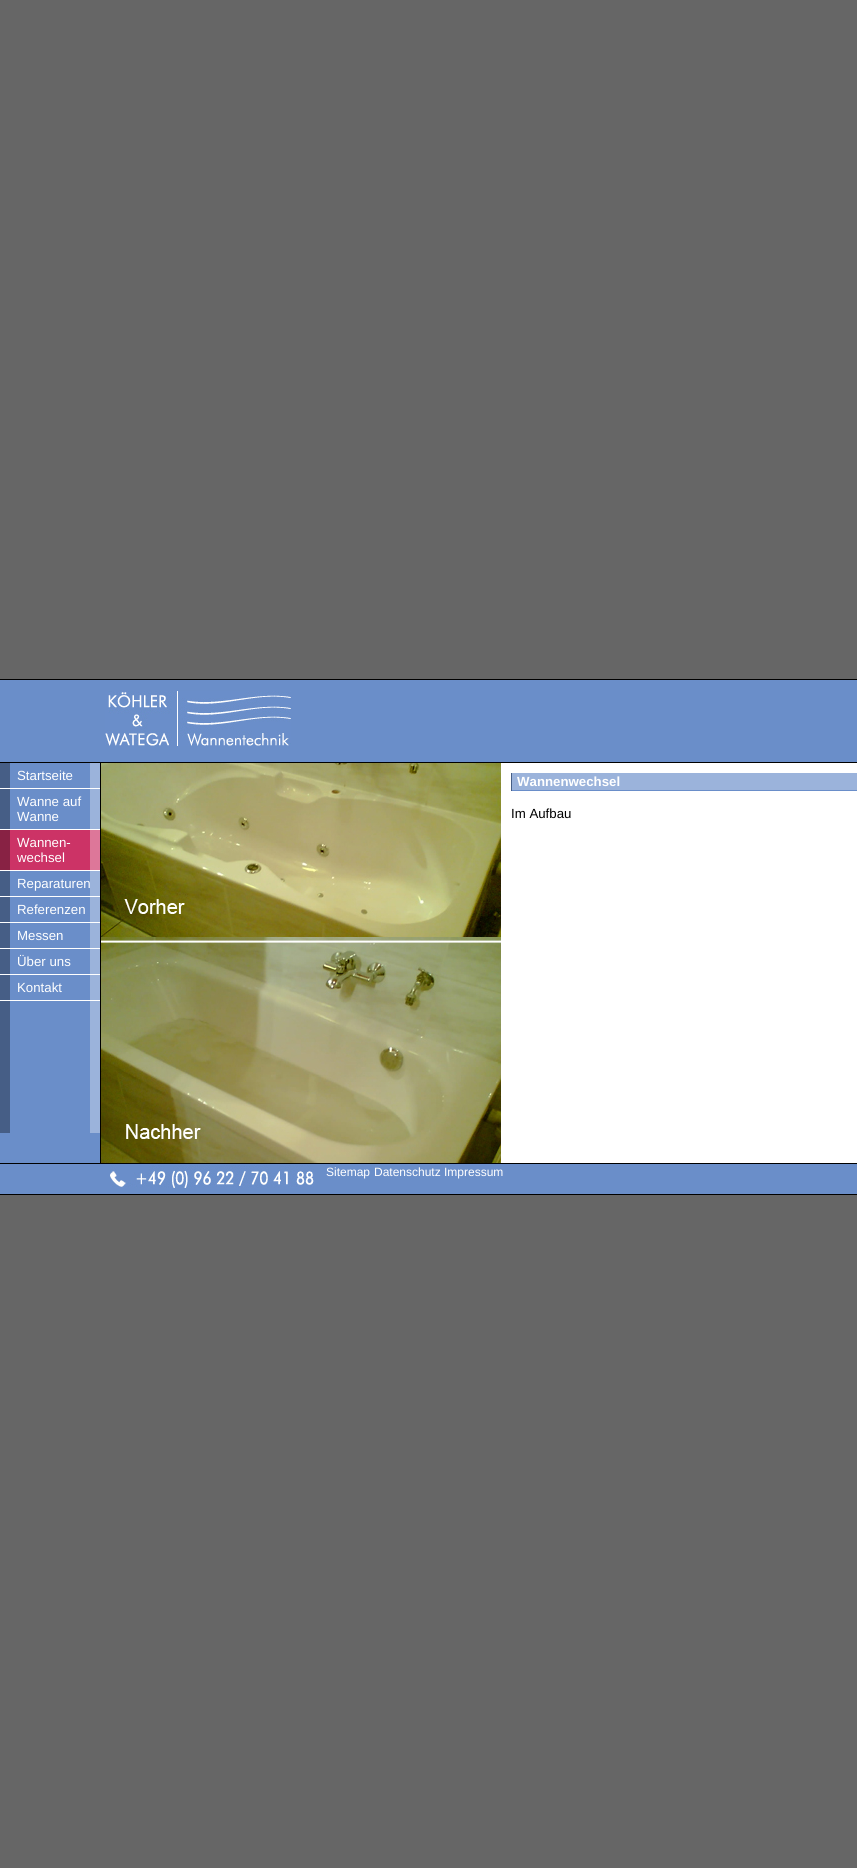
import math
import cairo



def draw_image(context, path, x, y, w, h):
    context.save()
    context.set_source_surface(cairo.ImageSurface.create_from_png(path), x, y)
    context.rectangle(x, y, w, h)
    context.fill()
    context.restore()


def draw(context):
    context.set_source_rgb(102 / 255, 102 / 255, 102 / 255)
    context.paint()
    context.set_source_rgb(1, 1, 1)
    context.rectangle(501, 763, 356, 400)
    context.fill()
    context.set_source_rgb(106 / 255, 142 / 255, 201 / 255)
    context.rectangle(0, 680, 857, 82)
    context.fill()
    context.set_source_rgb(0, 0, 0)
    context.rectangle(0, 679, 857, 1)
    context.fill()
    context.rectangle(0, 762, 857, 1)
    context.fill()
    draw_image(context, "images/1.png", 105, 691, 186, 55)
    context.set_source_rgb(106 / 255, 142 / 255, 201 / 255)
    context.rectangle(0, 763, 100, 400)
    context.fill()
    context.set_source_rgb(0, 0, 0)
    context.rectangle(100, 763, 1, 400)
    context.fill()
    context.set_source_rgb(1, 1, 1)
    context.rectangle(0, 788, 100, 1)
    context.fill()
    context.set_source_rgb(155 / 255, 179 / 255, 219 / 255)
    context.rectangle(90, 763, 10, 25)
    context.fill()
    context.set_source_rgb(70 / 255, 94 / 255, 134 / 255)
    context.rectangle(0, 763, 10, 25)
    context.fill()
    context.set_source_rgb(1, 1, 1)
    context.rectangle(0, 829, 100, 1)
    context.fill()
    context.set_source_rgb(155 / 255, 179 / 255, 219 / 255)
    context.rectangle(90, 789, 10, 40)
    context.fill()
    context.set_source_rgb(70 / 255, 94 / 255, 134 / 255)
    context.rectangle(0, 789, 10, 40)
    context.fill()
    context.set_source_rgb(1, 1, 1)
    context.rectangle(0, 870, 100, 1)
    context.fill()
    context.set_source_rgb(204 / 255, 51 / 255, 102 / 255)
    context.rectangle(10, 830, 80, 40)
    context.fill()
    context.set_source_rgb(221 / 255, 119 / 255, 153 / 255)
    context.rectangle(90, 830, 10, 40)
    context.fill()
    context.set_source_rgb(136 / 255, 34 / 255, 68 / 255)
    context.rectangle(0, 830, 10, 40)
    context.fill()
    context.set_source_rgb(1, 1, 1)
    context.rectangle(0, 896, 100, 1)
    context.fill()
    context.set_source_rgb(155 / 255, 179 / 255, 219 / 255)
    context.rectangle(90, 871, 10, 25)
    context.fill()
    context.set_source_rgb(70 / 255, 94 / 255, 134 / 255)
    context.rectangle(0, 871, 10, 25)
    context.fill()
    context.set_source_rgb(1, 1, 1)
    context.rectangle(0, 922, 100, 1)
    context.fill()
    context.set_source_rgb(155 / 255, 179 / 255, 219 / 255)
    context.rectangle(90, 897, 10, 25)
    context.fill()
    context.set_source_rgb(70 / 255, 94 / 255, 134 / 255)
    context.rectangle(0, 897, 10, 25)
    context.fill()
    context.set_source_rgb(1, 1, 1)
    context.rectangle(0, 948, 100, 1)
    context.fill()
    context.set_source_rgb(155 / 255, 179 / 255, 219 / 255)
    context.rectangle(90, 923, 10, 25)
    context.fill()
    context.set_source_rgb(70 / 255, 94 / 255, 134 / 255)
    context.rectangle(0, 923, 10, 25)
    context.fill()
    context.set_source_rgb(1, 1, 1)
    context.rectangle(0, 974, 100, 1)
    context.fill()
    context.set_source_rgb(155 / 255, 179 / 255, 219 / 255)
    context.rectangle(90, 949, 10, 25)
    context.fill()
    context.set_source_rgb(70 / 255, 94 / 255, 134 / 255)
    context.rectangle(0, 949, 10, 25)
    context.fill()
    context.set_source_rgb(1, 1, 1)
    context.rectangle(0, 1000, 100, 1)
    context.fill()
    context.set_source_rgb(155 / 255, 179 / 255, 219 / 255)
    context.rectangle(90, 975, 10, 25)
    context.fill()
    context.set_source_rgb(70 / 255, 94 / 255, 134 / 255)
    context.rectangle(0, 975, 10, 25)
    context.fill()
    context.set_source_rgb(155 / 255, 179 / 255, 219 / 255)
    context.rectangle(90, 1001, 10, 132)
    context.fill()
    context.set_source_rgb(70 / 255, 94 / 255, 134 / 255)
    context.rectangle(0, 1001, 10, 132)
    context.fill()
    draw_image(context, "images/2.png", 101, 763, 400, 400)
    context.set_source_rgb(155 / 255, 179 / 255, 219 / 255)
    context.rectangle(512, 773, 345, 17)
    context.fill()
    context.set_source_rgb(106 / 255, 142 / 255, 201 / 255)
    context.rectangle(511, 790, 346, 1)
    context.fill()
    context.set_source_rgb(70 / 255, 94 / 255, 134 / 255)
    context.rectangle(511, 773, 1, 18)
    context.fill()
    context.set_source_rgb(106 / 255, 142 / 255, 201 / 255)
    context.rectangle(0, 1164, 857, 30)
    context.fill()
    context.set_source_rgb(0, 0, 0)
    context.rectangle(0, 1163, 857, 1)
    context.fill()
    context.rectangle(0, 1194, 857, 1)
    context.fill()
    draw_image(context, "images/3.png", 110, 1165, 204, 23)
    context.select_font_face("Liberation Sans")
    context.set_font_size(13.25)
    context.set_source_rgb(1, 1, 1)
    context.move_to(17, 780)
    context.show_text("Startseite")
    context.move_to(17, 806)
    context.show_text("Wanne auf")
    context.move_to(17, 821)
    context.show_text("Wanne")
    context.move_to(17, 847)
    context.show_text("Wannen-")
    context.move_to(17, 862)
    context.show_text("wechsel")
    context.move_to(17, 888)
    context.show_text("Reparaturen")
    context.move_to(17, 914)
    context.show_text("Referenzen")
    context.move_to(17, 940)
    context.show_text("Messen")
    context.move_to(17, 966)
    context.show_text("Über uns")
    context.move_to(17, 992)
    context.show_text("Kontakt")
    context.select_font_face("Liberation Sans", cairo.FontSlant.NORMAL, cairo.FontWeight.BOLD)
    context.move_to(517, 786)
    context.show_text("Wannenwechsel")
    context.select_font_face("Liberation Sans")
    context.set_source_rgb(0, 0, 0)
    context.move_to(511, 818)
    context.show_text("Im Aufbau")
    context.set_font_size(12)
    context.set_source_rgb(1, 1, 1)
    context.move_to(326, 1176)
    context.show_text("Sitemap")
    context.move_to(374, 1176)
    context.show_text("Datenschutz")
    context.move_to(444, 1176)
    context.show_text("Impressum")


surface = cairo.ImageSurface(cairo.Format.RGB24, 857, 1868)
context = cairo.Context(surface)
options = cairo.FontOptions()
options.set_hint_metrics(cairo.HintMetrics.OFF)
options.set_hint_style(cairo.HintStyle.NONE)
context.set_font_options(options)
context.set_miter_limit(4)
draw(context)
surface.write_to_png("out.png")
